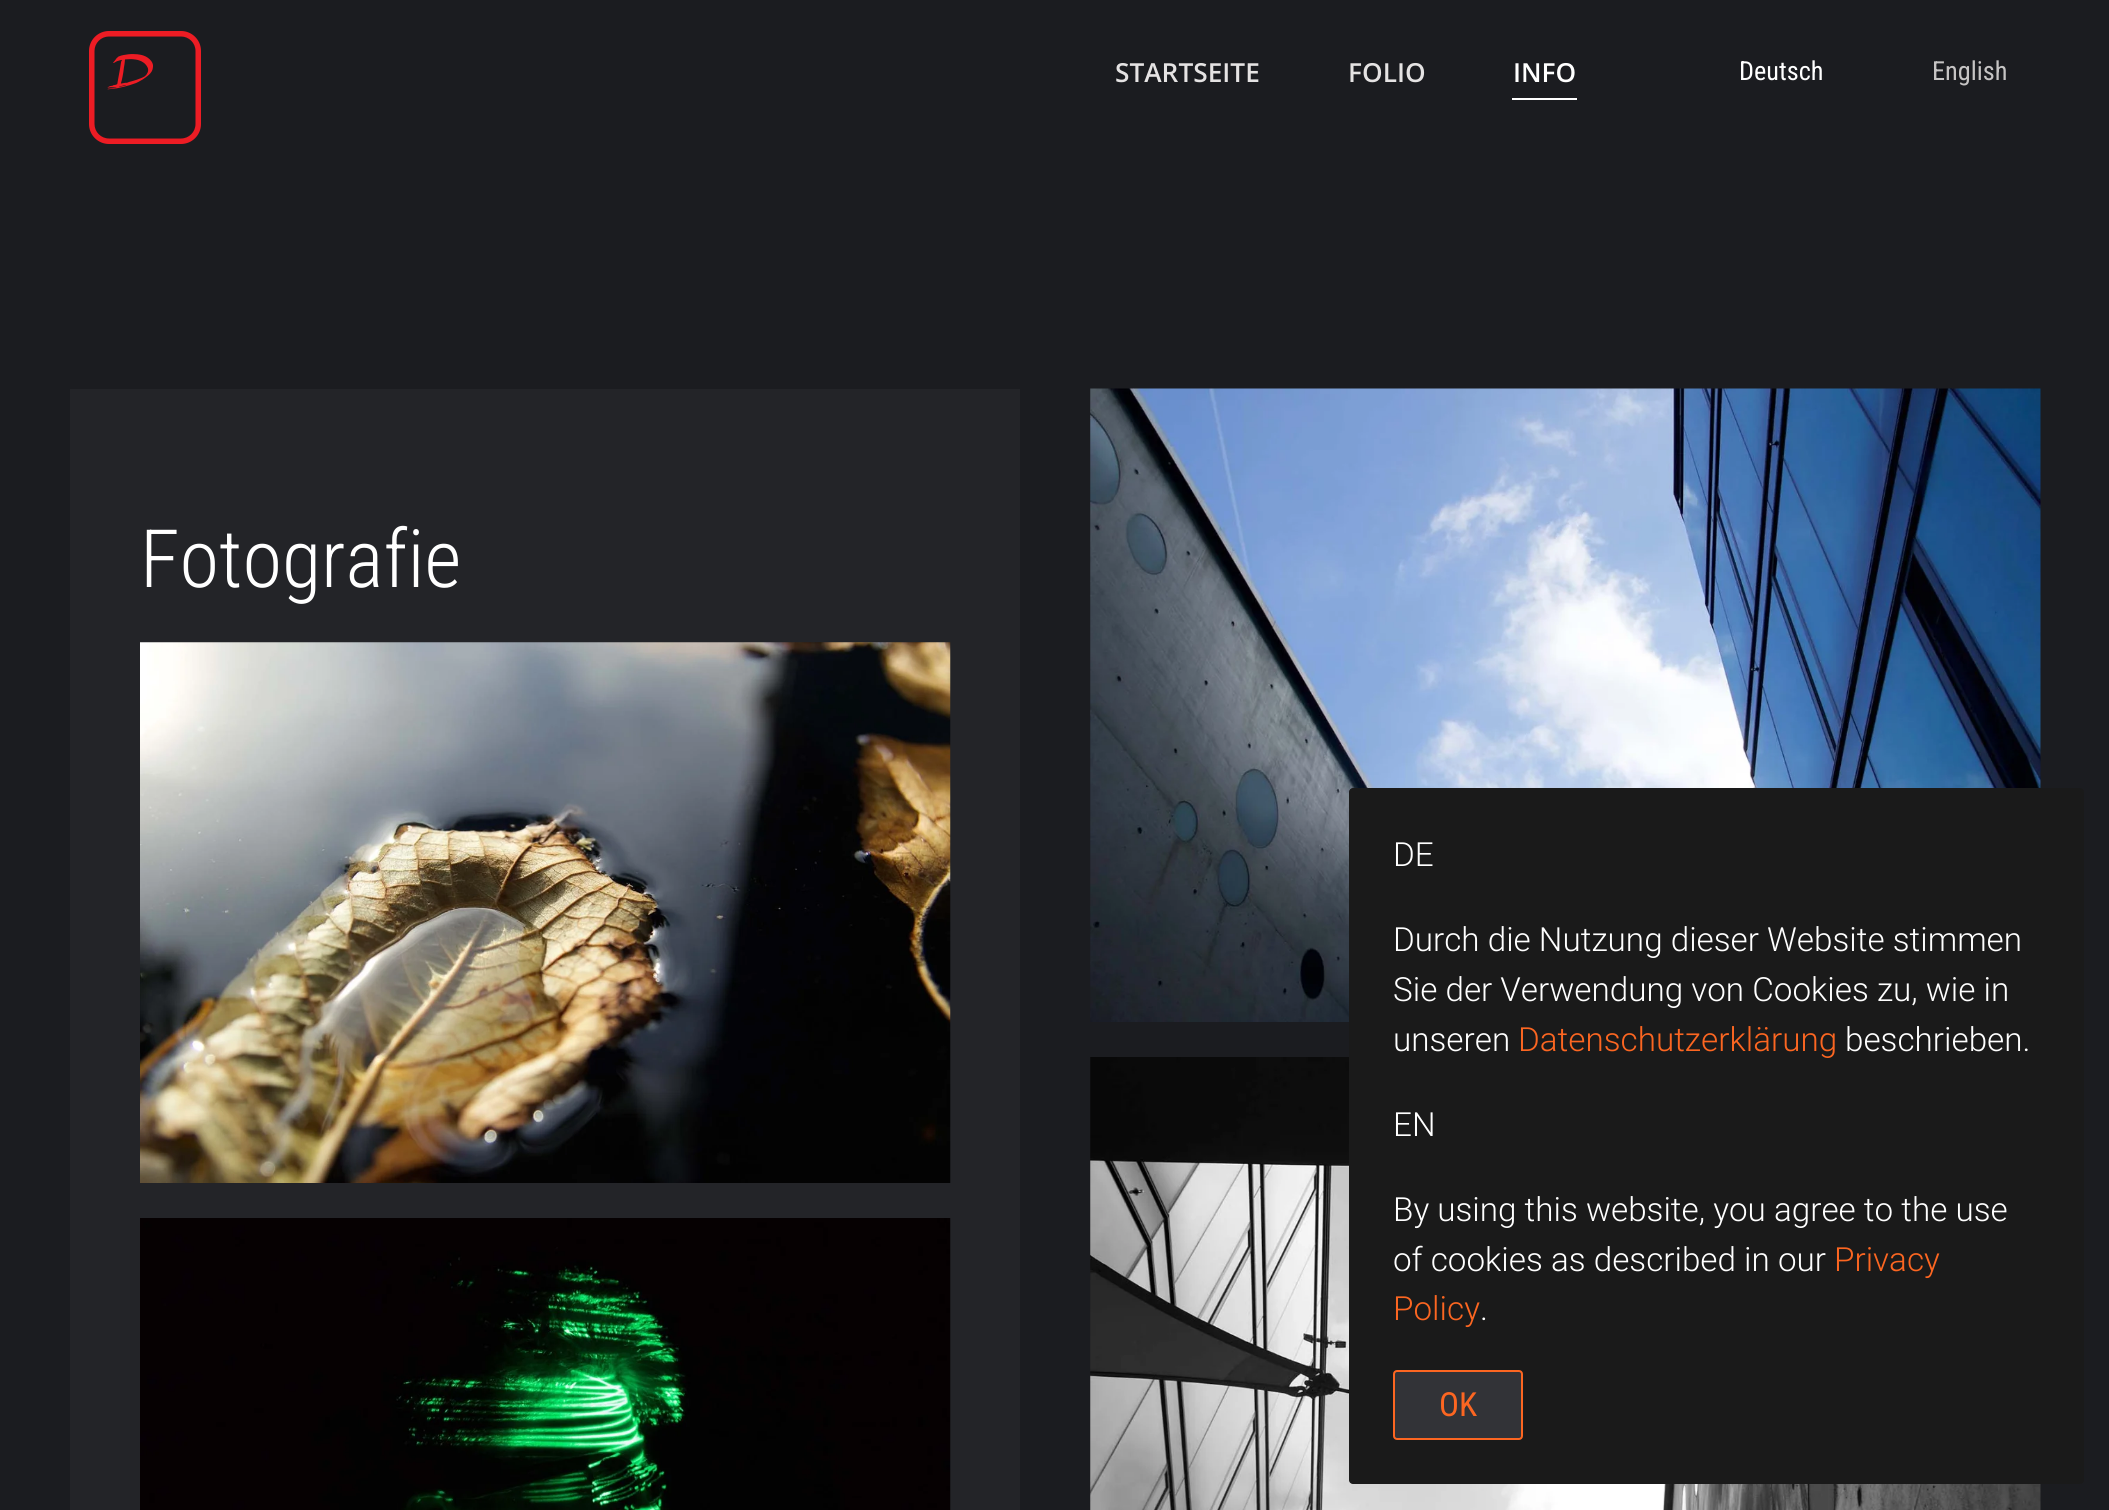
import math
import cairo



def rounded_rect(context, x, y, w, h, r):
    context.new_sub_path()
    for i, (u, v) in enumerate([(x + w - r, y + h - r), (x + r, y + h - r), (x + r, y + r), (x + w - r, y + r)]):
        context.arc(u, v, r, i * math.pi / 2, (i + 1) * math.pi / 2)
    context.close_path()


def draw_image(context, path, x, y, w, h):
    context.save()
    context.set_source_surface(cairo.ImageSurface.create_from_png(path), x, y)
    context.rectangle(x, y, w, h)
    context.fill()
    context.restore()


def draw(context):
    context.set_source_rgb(27 / 255, 28 / 255, 32 / 255)
    context.paint()
    draw_image(context, "images/1.png", 89, 31, 112, 113)
    context.set_source_rgb(1, 1, 1)
    context.rectangle(1512, 98, 65, 2)
    context.fill()
    context.set_source_rgb(35 / 255, 36 / 255, 40 / 255)
    context.rectangle(70, 389, 950, 1121)
    context.fill()
    draw_image(context, "images/2.png", 140, 642, 811, 541)
    draw_image(context, "images/3.png", 140, 1218, 811, 292)
    draw_image(context, "images/4.png", 1090, 388, 951, 634)
    draw_image(context, "images/5.png", 1090, 1057, 951, 453)
    context.set_source_rgb(26 / 255, 26 / 255, 26 / 255)
    rounded_rect(context, 1349, 788, 735, 696, 4)
    context.fill()
    context.set_source_rgb(50 / 255, 51 / 255, 55 / 255)
    rounded_rect(context, 1394, 1371, 128, 68, 3)
    context.fill_preserve()
    context.set_source_rgb(252 / 255, 102 / 255, 33 / 255)
    context.stroke()
    context.select_font_face("Open Sans SemiBold")
    context.set_font_size(26.25)
    context.set_source_rgb(229 / 255, 227 / 255, 227 / 255)
    context.move_to(1115, 82)
    context.show_text("STARTSEITE")
    context.move_to(1348, 82)
    context.show_text("FOLIO")
    context.set_source_rgb(1, 1, 1)
    context.move_to(1513, 82)
    context.show_text("INFO")
    context.select_font_face("Roboto Condensed")
    context.move_to(1739, 80)
    context.show_text("Deutsch")
    context.set_source_rgb(198 / 255, 196 / 255, 196 / 255)
    context.move_to(1932, 80)
    context.show_text("English")
    context.select_font_face("Roboto Condensed Light")
    context.set_font_size(80.5)
    context.set_source_rgb(1, 1, 1)
    context.move_to(140, 587)
    context.show_text("Fotografie")
    context.select_font_face("Roboto Light")
    context.set_font_size(33.25)
    context.move_to(1393, 866)
    context.show_text("DE")
    context.move_to(1393, 951)
    context.show_text("Durch die Nutzung dieser Website stimmen")
    context.move_to(1393, 1001)
    context.show_text("Sie der Verwendung von Cookies zu, wie in")
    context.move_to(1393, 1051)
    context.show_text("unseren")
    context.set_source_rgb(252 / 255, 102 / 255, 33 / 255)
    context.move_to(1518, 1051)
    context.show_text("Datenschutzerklärung")
    context.set_source_rgb(1, 1, 1)
    context.move_to(1845, 1051)
    context.show_text("beschrieben.")
    context.move_to(1393, 1136)
    context.show_text("EN")
    context.move_to(1393, 1221)
    context.show_text("By using this website, you agree to the use")
    context.move_to(1393, 1271)
    context.show_text("of cookies as described in our")
    context.set_source_rgb(252 / 255, 102 / 255, 33 / 255)
    context.move_to(1834, 1271)
    context.show_text("Privacy")
    context.move_to(1393, 1320)
    context.show_text("Policy")
    context.set_source_rgb(1, 1, 1)
    context.move_to(1480, 1320)
    context.show_text(".")
    context.select_font_face("Roboto Condensed")
    context.set_source_rgb(252 / 255, 102 / 255, 33 / 255)
    context.move_to(1439, 1416)
    context.show_text("OK")


surface = cairo.ImageSurface(cairo.Format.RGB24, 2109, 1510)
context = cairo.Context(surface)
options = cairo.FontOptions()
options.set_hint_metrics(cairo.HintMetrics.OFF)
options.set_hint_style(cairo.HintStyle.NONE)
context.set_font_options(options)
context.set_miter_limit(4)
draw(context)
surface.write_to_png("out.png")
